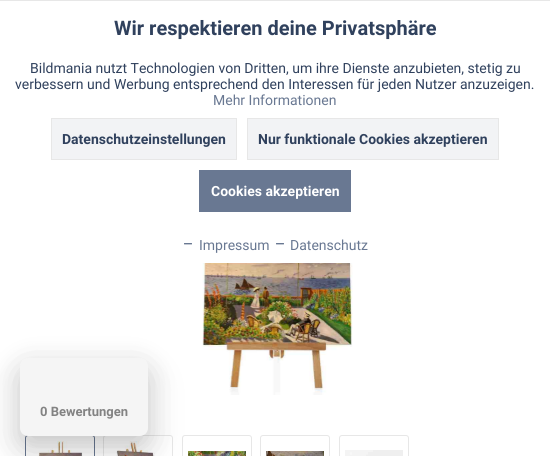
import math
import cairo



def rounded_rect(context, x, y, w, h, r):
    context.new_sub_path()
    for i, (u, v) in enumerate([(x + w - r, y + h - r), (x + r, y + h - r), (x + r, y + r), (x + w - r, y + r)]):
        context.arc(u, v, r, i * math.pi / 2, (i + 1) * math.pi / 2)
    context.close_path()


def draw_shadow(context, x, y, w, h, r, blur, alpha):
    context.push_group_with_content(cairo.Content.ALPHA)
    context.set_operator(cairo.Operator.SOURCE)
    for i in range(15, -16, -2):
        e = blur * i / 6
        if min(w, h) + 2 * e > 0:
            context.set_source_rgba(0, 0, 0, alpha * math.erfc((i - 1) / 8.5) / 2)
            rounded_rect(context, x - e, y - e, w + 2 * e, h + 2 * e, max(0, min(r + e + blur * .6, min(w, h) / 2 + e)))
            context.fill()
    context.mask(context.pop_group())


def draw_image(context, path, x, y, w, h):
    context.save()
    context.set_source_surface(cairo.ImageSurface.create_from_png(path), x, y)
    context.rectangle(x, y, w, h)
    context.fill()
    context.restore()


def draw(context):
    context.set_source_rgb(1, 1, 1)
    context.paint()
    context.set_source_rgb(231 / 255, 231 / 255, 231 / 255)
    context.rectangle(0, 0, 550, 1)
    context.fill()
    context.set_source_rgb(242 / 255, 243 / 255, 245 / 255)
    context.rectangle(51.5, 118.5, 185, 41)
    context.fill_preserve()
    context.set_source_rgb(231 / 255, 231 / 255, 231 / 255)
    context.set_line_width(1)
    context.stroke()
    context.set_source_rgb(242 / 255, 243 / 255, 245 / 255)
    context.rectangle(247.5, 118.5, 251, 41)
    context.fill_preserve()
    context.set_source_rgb(231 / 255, 231 / 255, 231 / 255)
    context.stroke()
    context.set_source_rgb(105 / 255, 120 / 255, 146 / 255)
    context.rectangle(199, 170, 152, 42)
    context.fill()
    draw_image(context, "images/1.png", 184, 243, 8, 2)
    draw_image(context, "images/1.png", 276, 243, 8, 2)
    draw_image(context, "images/2.png", 202, 263, 151, 132)
    rounded_rect(context, 25.5, 435.5, 69, 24, 2.5)
    context.stroke()
    draw_image(context, "images/3.png", 38, 441, 45, 15)
    rounded_rect(context, 103.5, 435.5, 69, 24, 2.5)
    context.set_source_rgb(231 / 255, 231 / 255, 231 / 255)
    context.stroke()
    draw_image(context, "images/4.png", 116, 441, 39, 15)
    rounded_rect(context, 182.5, 435.5, 69, 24, 2.5)
    context.stroke()
    draw_image(context, "images/5.png", 188, 451, 58, 5)
    rounded_rect(context, 260.5, 435.5, 69, 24, 2.5)
    context.stroke()
    draw_image(context, "images/6.png", 266, 451, 58, 5)
    rounded_rect(context, 339.5, 435.5, 69, 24, 2.5)
    context.stroke()
    draw_image(context, "images/7.png", 345, 450, 58, 6)
    context.set_source_rgb(0, 0, 0)
    draw_shadow(context, 20, 368, 128, 78, 8, 15, 0.15)
    draw_shadow(context, 20, 373, 128, 78, 8, 20, 0.1)
    context.set_source_rgb(245 / 255, 245 / 255, 245 / 255)
    rounded_rect(context, 20, 358, 128, 78, 8)
    context.fill()
    context.select_font_face("Roboto", cairo.FontSlant.NORMAL, cairo.FontWeight.BOLD)
    context.set_font_size(20)
    context.set_source_rgb(48 / 255, 65 / 255, 93 / 255)
    context.move_to(114, 35)
    context.show_text("Wir respektieren deine Privatsphäre")
    context.select_font_face("Roboto")
    context.set_font_size(14)
    context.move_to(30, 73)
    context.show_text("Bildmania nutzt Technologien von Dritten, um ihre Dienste anzubieten, stetig zu")
    context.move_to(15, 89)
    context.show_text("verbessern und Werbung entsprechend den Interessen für jeden Nutzer anzuzeigen.")
    context.set_source_rgb(105 / 255, 120 / 255, 146 / 255)
    context.move_to(213, 105)
    context.show_text("Mehr Informationen")
    context.select_font_face("Roboto", cairo.FontSlant.NORMAL, cairo.FontWeight.BOLD)
    context.set_source_rgb(48 / 255, 65 / 255, 93 / 255)
    context.move_to(62, 144)
    context.show_text("Datenschutzeinstellungen")
    context.move_to(258, 144)
    context.show_text("Nur funktionale Cookies akzeptieren")
    context.set_source_rgb(1, 1, 1)
    context.move_to(211, 196)
    context.show_text("Cookies akzeptieren")
    context.select_font_face("Roboto")
    context.set_source_rgb(105 / 255, 120 / 255, 146 / 255)
    context.move_to(199, 250)
    context.show_text("Impressum")
    context.move_to(290, 250)
    context.show_text("Datenschutz")
    context.select_font_face("Roboto", cairo.FontSlant.NORMAL, cairo.FontWeight.BOLD)
    context.set_font_size(13)
    context.set_source_rgb(131 / 255, 131 / 255, 131 / 255)
    context.move_to(40, 416)
    context.show_text("0 Bewertungen")


surface = cairo.ImageSurface(cairo.Format.RGB24, 550, 456)
context = cairo.Context(surface)
options = cairo.FontOptions()
options.set_hint_metrics(cairo.HintMetrics.OFF)
options.set_hint_style(cairo.HintStyle.NONE)
context.set_font_options(options)
context.set_miter_limit(4)
draw(context)
surface.write_to_png("out.png")
